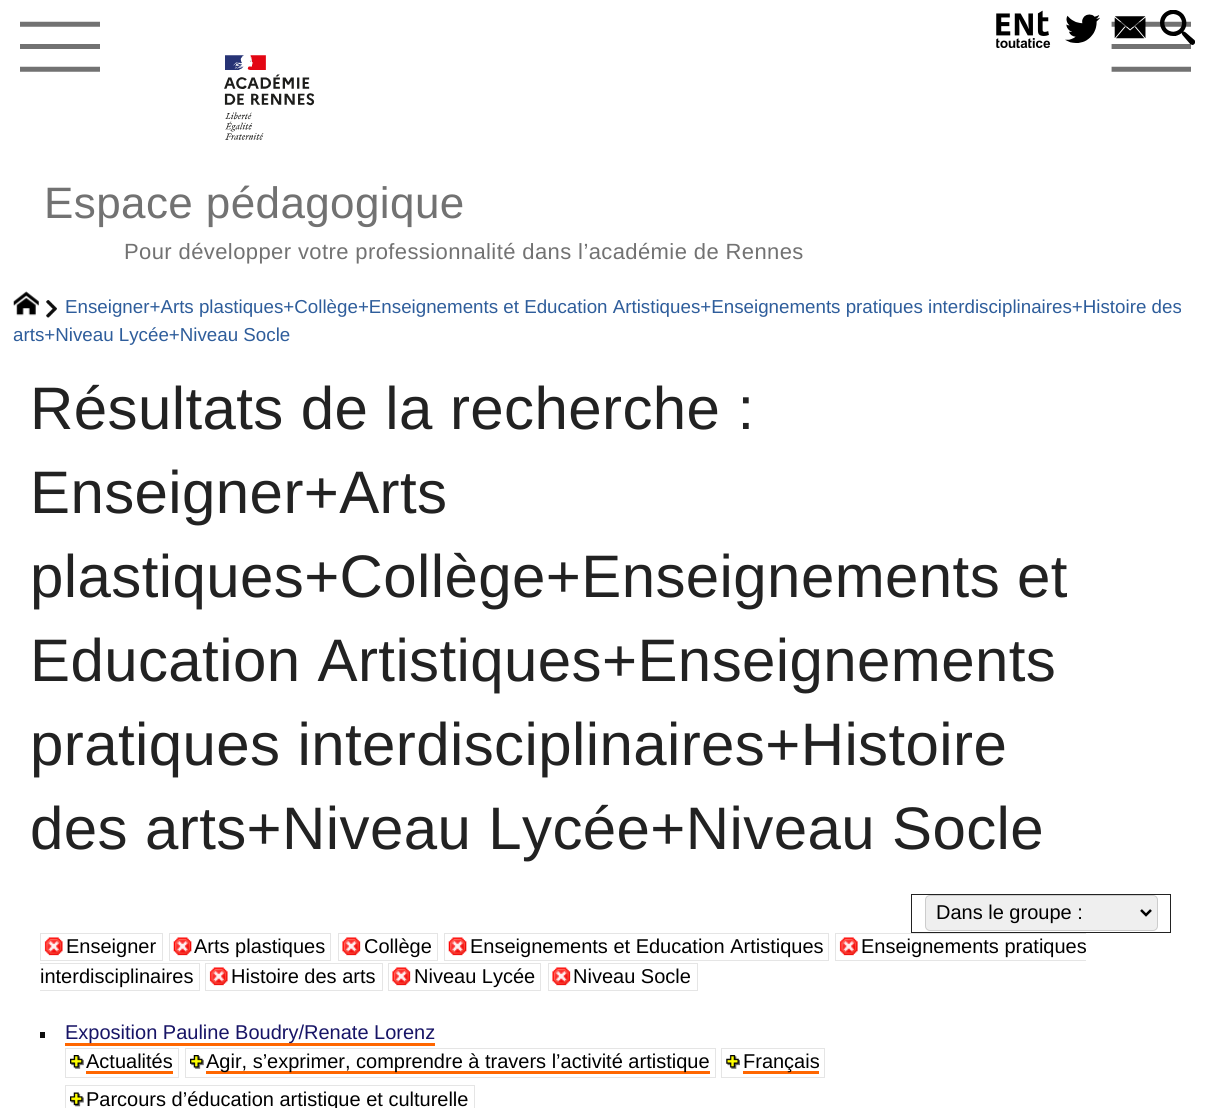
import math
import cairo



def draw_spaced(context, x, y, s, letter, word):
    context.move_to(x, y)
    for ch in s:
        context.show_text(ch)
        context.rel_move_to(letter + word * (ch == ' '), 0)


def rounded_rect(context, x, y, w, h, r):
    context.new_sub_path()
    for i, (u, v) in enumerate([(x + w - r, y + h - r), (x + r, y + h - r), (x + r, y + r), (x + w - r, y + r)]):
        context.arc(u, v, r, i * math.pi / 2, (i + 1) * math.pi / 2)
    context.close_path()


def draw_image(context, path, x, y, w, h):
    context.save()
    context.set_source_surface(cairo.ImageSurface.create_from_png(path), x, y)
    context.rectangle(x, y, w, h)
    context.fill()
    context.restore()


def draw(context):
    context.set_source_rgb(1, 1, 1)
    context.paint()
    draw_image(context, "images/1.png", 996, 10, 55, 38)
    draw_image(context, "images/2.png", 1065, 14, 35, 29)
    draw_image(context, "images/6.png", 1111, 21, 80, 51)
    draw_image(context, "images/3.png", 1114, 16, 32, 23)
    draw_image(context, "images/4.png", 1160, 10, 35, 35)
    draw_image(context, "images/5.png", 20, 21, 80, 51)
    draw_image(context, "images/7.png", 224, 55, 91, 85)
    draw_image(context, "images/8.png", 46, 300, 11, 18)
    draw_image(context, "images/9.png", 13, 291, 26, 25)
    context.rectangle(911.5, 894.5, 259, 38)
    context.set_source_rgb(34 / 255, 34 / 255, 34 / 255)
    context.set_line_width(1)
    context.stroke()
    context.set_source_rgb(239 / 255, 239 / 255, 239 / 255)
    rounded_rect(context, 925.5, 895.5, 232, 35, 4.5)
    context.fill_preserve()
    context.set_source_rgb(204 / 255, 204 / 255, 204 / 255)
    context.stroke()
    context.new_path()
    context.move_to(1141, 910)
    context.line_to(1146, 915)
    context.line_to(1151, 910)
    context.set_source_rgb(0, 0, 0)
    context.set_line_width(2.5)
    context.stroke()
    draw_image(context, "images/10.png", 44, 937, 19, 19)
    context.rectangle(40.5, 933.5, 122, 27)
    context.set_source_rgb(229 / 255, 229 / 255, 229 / 255)
    context.set_line_width(1)
    context.stroke()
    draw_image(context, "images/11.png", 173, 937, 19, 19)
    context.rectangle(169.5, 933.5, 161, 27)
    context.stroke()
    draw_image(context, "images/12.png", 342, 937, 19, 19)
    context.rectangle(338.5, 933.5, 99, 27)
    context.stroke()
    draw_image(context, "images/11.png", 448, 937, 19, 19)
    context.rectangle(444.5, 933.5, 384, 27)
    context.stroke()
    draw_image(context, "images/13.png", 839, 937, 19, 19)
    context.rectangle(835, 933, 251, 1)
    context.fill()
    context.rectangle(835, 960, 251, 1)
    context.fill()
    context.rectangle(835, 933, 1, 28)
    context.fill()
    context.rectangle(40, 963, 160, 1)
    context.fill()
    context.rectangle(199, 963, 1, 28)
    context.fill()
    context.rectangle(40, 990, 160, 1)
    context.fill()
    draw_image(context, "images/10.png", 209, 967, 19, 19)
    context.rectangle(205.5, 963.5, 177, 27)
    context.stroke()
    draw_image(context, "images/12.png", 392, 967, 19, 19)
    context.rectangle(388.5, 963.5, 152, 27)
    context.stroke()
    draw_image(context, "images/12.png", 552, 967, 19, 19)
    context.rectangle(548.5, 963.5, 149, 27)
    context.stroke()
    context.set_source_rgb(14 / 255, 14 / 255, 14 / 255)
    context.rectangle(40, 1032, 5, 6)
    context.fill()
    context.set_source_rgb(1, 102 / 255, 0)
    context.rectangle(65, 1043, 370, 3)
    context.fill()
    draw_image(context, "images/14.png", 70, 1055, 14, 14)
    context.rectangle(65.5, 1048.5, 113, 29)
    context.set_source_rgb(229 / 255, 229 / 255, 229 / 255)
    context.stroke()
    context.set_source_rgb(1, 102 / 255, 0)
    context.rectangle(86, 1071, 87, 3)
    context.fill()
    draw_image(context, "images/14.png", 190, 1055, 14, 14)
    context.rectangle(185.5, 1048.5, 530, 29)
    context.set_source_rgb(229 / 255, 229 / 255, 229 / 255)
    context.stroke()
    context.set_source_rgb(1, 102 / 255, 0)
    context.rectangle(206, 1071, 504, 3)
    context.fill()
    draw_image(context, "images/15.png", 726, 1055, 14, 14)
    context.rectangle(721.5, 1048.5, 103, 29)
    context.set_source_rgb(229 / 255, 229 / 255, 229 / 255)
    context.stroke()
    context.set_source_rgb(1, 102 / 255, 0)
    context.rectangle(743, 1071, 76, 3)
    context.fill()
    draw_image(context, "images/16.png", 70, 1092, 14, 15)
    context.rectangle(65.5, 1085.5, 409, 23)
    context.set_source_rgb(229 / 255, 229 / 255, 229 / 255)
    context.stroke()
    context.select_font_face("Liberation Sans")
    context.set_font_size(44)
    context.set_source_rgb(114 / 255, 114 / 255, 114 / 255)
    draw_spaced(context, 44, 218, "Espace pédagogique", 0.4, 0)
    context.set_font_size(22)
    draw_spaced(context, 124, 259, "Pour développer votre professionnalité dans l’académie de Rennes", 0.4, 0)
    context.set_font_size(18.75)
    context.set_source_rgb(46 / 255, 93 / 255, 155 / 255)
    context.move_to(65, 313)
    context.show_text("Enseigner+Arts plastiques+Collège+Enseignements et Education Artistiques+Enseignements pratiques interdisciplinaires+Histoire des")
    context.move_to(13, 341)
    context.show_text("arts+Niveau Lycée+Niveau Socle")
    context.set_font_size(60)
    context.set_source_rgb(34 / 255, 34 / 255, 34 / 255)
    draw_spaced(context, 30, 429, "Résultats de la recherche :", 0.4, 0)
    draw_spaced(context, 30, 513, "Enseigner+Arts", 0.4, 0)
    draw_spaced(context, 30, 597, "plastiques+Collège+Enseignements et", 0.4, 0)
    draw_spaced(context, 30, 681, "Education Artistiques+Enseignements", 0.4, 0)
    draw_spaced(context, 30, 765, "pratiques interdisciplinaires+Histoire", 0.4, 0)
    draw_spaced(context, 30, 849, "des arts+Niveau Lycée+Niveau Socle", 0.4, 0)
    context.set_font_size(20)
    context.set_source_rgb(0, 0, 0)
    context.move_to(936, 919)
    context.show_text("Dans le groupe :")
    context.move_to(66, 953)
    context.show_text("Enseigner")
    context.move_to(194, 953)
    context.show_text("Arts plastiques")
    context.move_to(364, 953)
    context.show_text("Collège")
    context.move_to(470, 953)
    context.show_text("Enseignements et Education Artistiques")
    context.move_to(861, 953)
    context.show_text("Enseignements pratiques")
    context.move_to(40, 983)
    context.show_text("interdisciplinaires")
    context.move_to(231, 983)
    context.show_text("Histoire des arts")
    context.move_to(414, 983)
    context.show_text("Niveau Lycée")
    context.move_to(573, 983)
    context.show_text("Niveau Socle")
    context.set_source_rgb(23 / 255, 20 / 255, 102 / 255)
    context.move_to(65, 1039)
    context.show_text("Exposition Pauline Boudry/Renate Lorenz")
    context.set_source_rgb(0, 0, 0)
    context.move_to(86, 1068)
    context.show_text("Actualités")
    context.move_to(206, 1068)
    context.show_text("Agir, s’exprimer, comprendre à travers l’activité artistique")
    context.move_to(743, 1068)
    context.show_text("Français")
    context.move_to(86, 1106)
    context.show_text("Parcours d’éducation artistique et culturelle")


surface = cairo.ImageSurface(cairo.Format.RGB24, 1211, 1108)
context = cairo.Context(surface)
options = cairo.FontOptions()
options.set_hint_metrics(cairo.HintMetrics.OFF)
options.set_hint_style(cairo.HintStyle.NONE)
context.set_font_options(options)
context.set_miter_limit(4)
draw(context)
surface.write_to_png("out.png")
